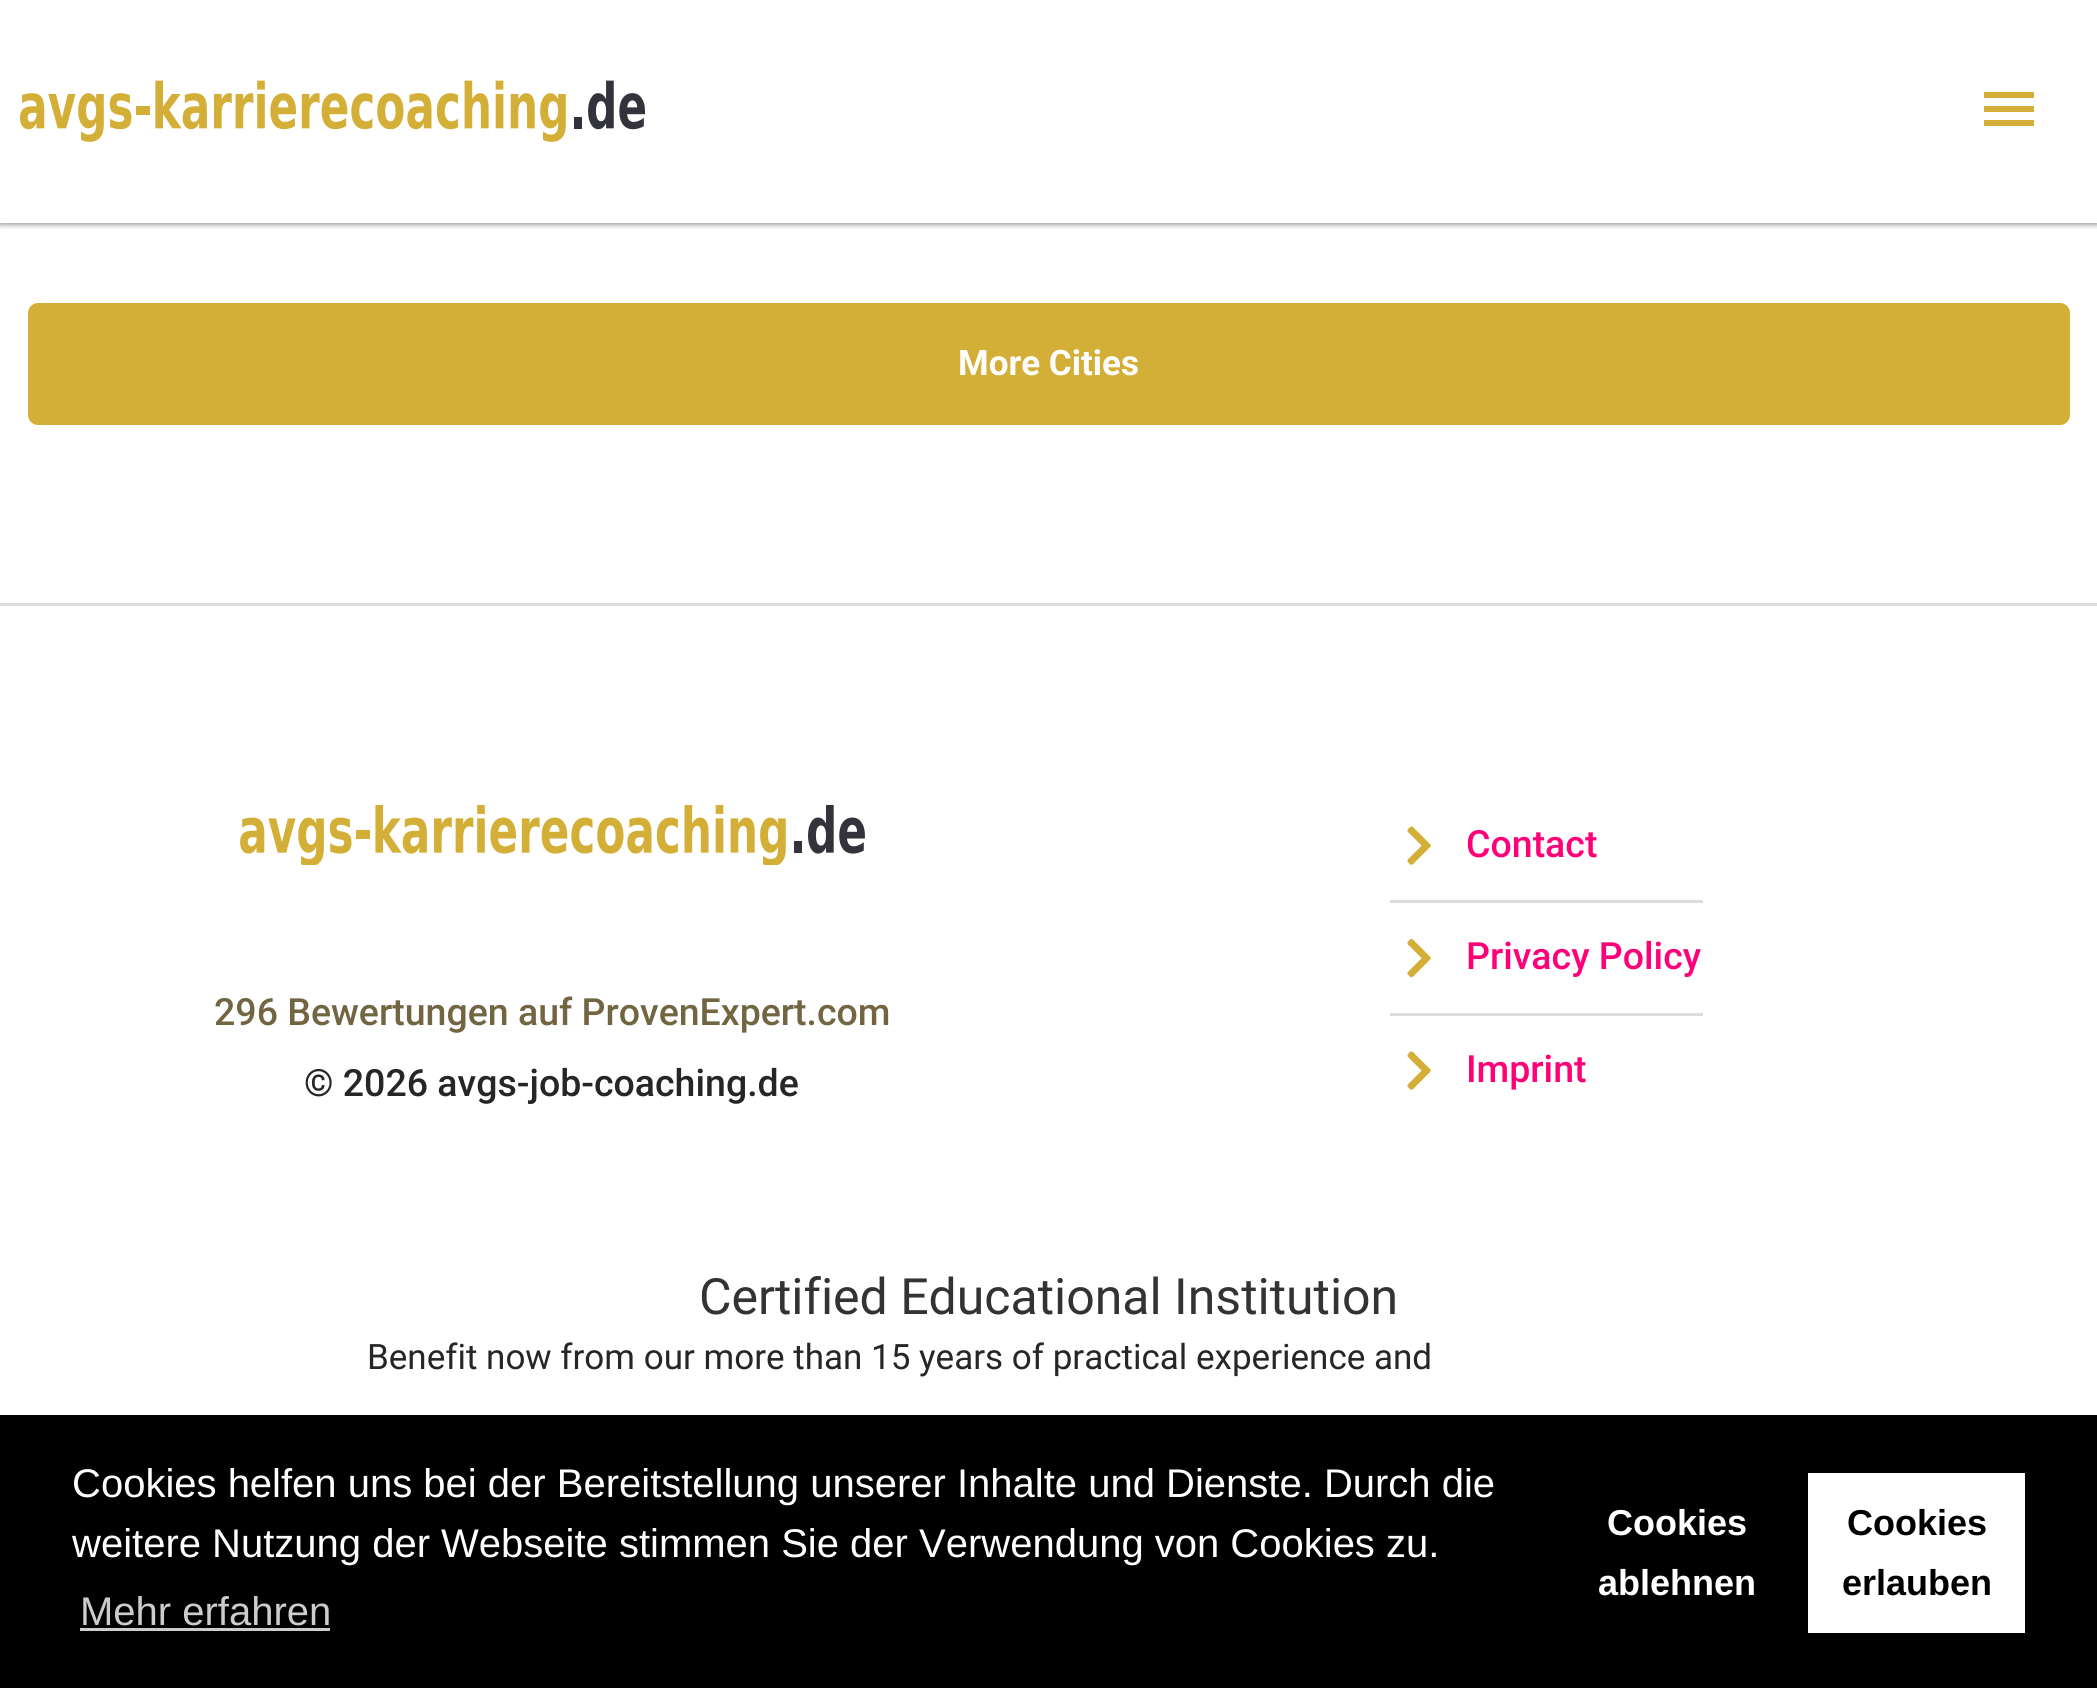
import math
import cairo



def rounded_rect(context, x, y, w, h, r):
    context.new_sub_path()
    for i, (u, v) in enumerate([(x + w - r, y + h - r), (x + r, y + h - r), (x + r, y + r), (x + w - r, y + r)]):
        context.arc(u, v, r, i * math.pi / 2, (i + 1) * math.pi / 2)
    context.close_path()


def draw_shadow(context, x, y, w, h, r, blur, alpha):
    context.push_group_with_content(cairo.Content.ALPHA)
    context.set_operator(cairo.Operator.SOURCE)
    for i in range(15, -16, -2):
        e = blur * i / 6
        if min(w, h) + 2 * e > 0:
            context.set_source_rgba(0, 0, 0, alpha * math.erfc((i - 1) / 8.5) / 2)
            rounded_rect(context, x - e, y - e, w + 2 * e, h + 2 * e, max(0, min(r + e + blur * .6, min(w, h) / 2 + e)))
            context.fill()
    context.mask(context.pop_group())


def draw_image(context, path, x, y, w, h):
    context.save()
    context.set_source_surface(cairo.ImageSurface.create_from_png(path), x, y)
    context.rectangle(x, y, w, h)
    context.fill()
    context.restore()


def draw(context):
    context.set_source_rgb(1, 1, 1)
    context.paint()
    context.set_source_rgb(0, 0, 0)
    draw_shadow(context, 0, 3, 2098, 222, 0, 2.5, 0.2)
    draw_shadow(context, 0, 3, 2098, 222, 0, 2.5, 0.2)
    context.set_source_rgb(1, 1, 1)
    context.rectangle(0, 0, 2097, 223)
    context.fill()
    draw_image(context, "images/1.png", 20, 80, 625, 62)
    context.set_source_rgb(212 / 255, 175 / 255, 55 / 255)
    context.new_path()
    context.move_to(1984, 92)
    context.line_to(2034, 92)
    context.line_to(2034, 98)
    context.line_to(1984, 98)
    context.close_path()
    context.move_to(1984, 112)
    context.line_to(1984, 106)
    context.line_to(2034, 106)
    context.line_to(2034, 112)
    context.close_path()
    context.move_to(1984, 126)
    context.line_to(1984, 120)
    context.line_to(2034, 120)
    context.line_to(2034, 126)
    context.close_path()
    context.fill()
    context.set_source_rgb(221 / 255, 221 / 255, 221 / 255)
    context.rectangle(0, 603, 2097, 3)
    context.fill()
    context.set_source_rgb(212 / 255, 175 / 255, 55 / 255)
    rounded_rect(context, 26.5, 301.5, 2045, 125, 11.5)
    context.fill_preserve()
    context.set_source_rgb(1, 1, 1)
    context.set_line_width(3)
    context.stroke()
    draw_image(context, "images/2.png", 240, 805, 625, 60)
    draw_image(context, "images/3.png", 1407, 826, 24, 39)
    context.set_source_rgb(221 / 255, 221 / 255, 221 / 255)
    context.rectangle(1390, 900, 313, 3)
    context.fill()
    draw_image(context, "images/4.png", 1407, 939, 24, 39)
    context.rectangle(1390, 1013, 313, 3)
    context.fill()
    draw_image(context, "images/3.png", 1407, 1051, 24, 39)
    context.set_source_rgb(0, 0, 0)
    context.rectangle(0, 1415, 2097, 273)
    context.fill()
    context.set_source_rgb(204 / 255, 204 / 255, 204 / 255)
    context.rectangle(80, 1628, 250, 3)
    context.fill()
    context.set_source_rgb(1, 1, 1)
    context.rectangle(1808, 1473, 217, 160)
    context.fill()
    context.select_font_face("Roboto", cairo.FontSlant.NORMAL, cairo.FontWeight.BOLD)
    context.set_font_size(35)
    context.move_to(958, 375)
    context.show_text("More Cities")
    context.select_font_face("Roboto Medium")
    context.set_font_size(37.5)
    context.set_source_rgb(114 / 255, 101 / 255, 66 / 255)
    context.move_to(214, 1025)
    context.show_text("296 Bewertungen auf ProvenExpert.com")
    context.set_source_rgb(38 / 255, 38 / 255, 38 / 255)
    context.move_to(304, 1096)
    context.show_text("© 2026 avgs-job-coaching.de")
    context.set_source_rgb(1, 0, 120 / 255)
    context.move_to(1466, 857)
    context.show_text("Contact")
    context.move_to(1466, 969)
    context.show_text("Privacy Policy")
    context.move_to(1466, 1082)
    context.show_text("Imprint")
    context.select_font_face("Roboto")
    context.set_font_size(50)
    context.set_source_rgb(51 / 255, 51 / 255, 51 / 255)
    context.move_to(699, 1314)
    context.show_text("Certified Educational Institution")
    context.set_font_size(35)
    context.set_source_rgb(38 / 255, 38 / 255, 38 / 255)
    context.move_to(367, 1369)
    context.show_text("Benefit now from our more than 15 years of practical experience and")
    context.select_font_face("Liberation Sans")
    context.set_font_size(40)
    context.set_source_rgb(1, 1, 1)
    context.move_to(72, 1497)
    context.show_text("Cookies helfen uns bei der Bereitstellung unserer Inhalte und Dienste. Durch die")
    context.move_to(72, 1557)
    context.show_text("weitere Nutzung der Webseite stimmen Sie der Verwendung von Cookies zu.")
    context.set_source_rgb(204 / 255, 204 / 255, 204 / 255)
    context.move_to(80, 1625)
    context.show_text("Mehr erfahren")
    context.select_font_face("Liberation Sans", cairo.FontSlant.NORMAL, cairo.FontWeight.BOLD)
    context.set_font_size(36)
    context.set_source_rgb(1, 1, 1)
    context.move_to(1607, 1535)
    context.show_text("Cookies")
    context.move_to(1598, 1595)
    context.show_text("ablehnen")
    context.set_source_rgb(0, 0, 0)
    context.move_to(1847, 1535)
    context.show_text("Cookies")
    context.move_to(1842, 1595)
    context.show_text("erlauben")


surface = cairo.ImageSurface(cairo.Format.RGB24, 2097, 1688)
context = cairo.Context(surface)
options = cairo.FontOptions()
options.set_hint_metrics(cairo.HintMetrics.OFF)
options.set_hint_style(cairo.HintStyle.NONE)
context.set_font_options(options)
context.set_miter_limit(4)
draw(context)
surface.write_to_png("out.png")
